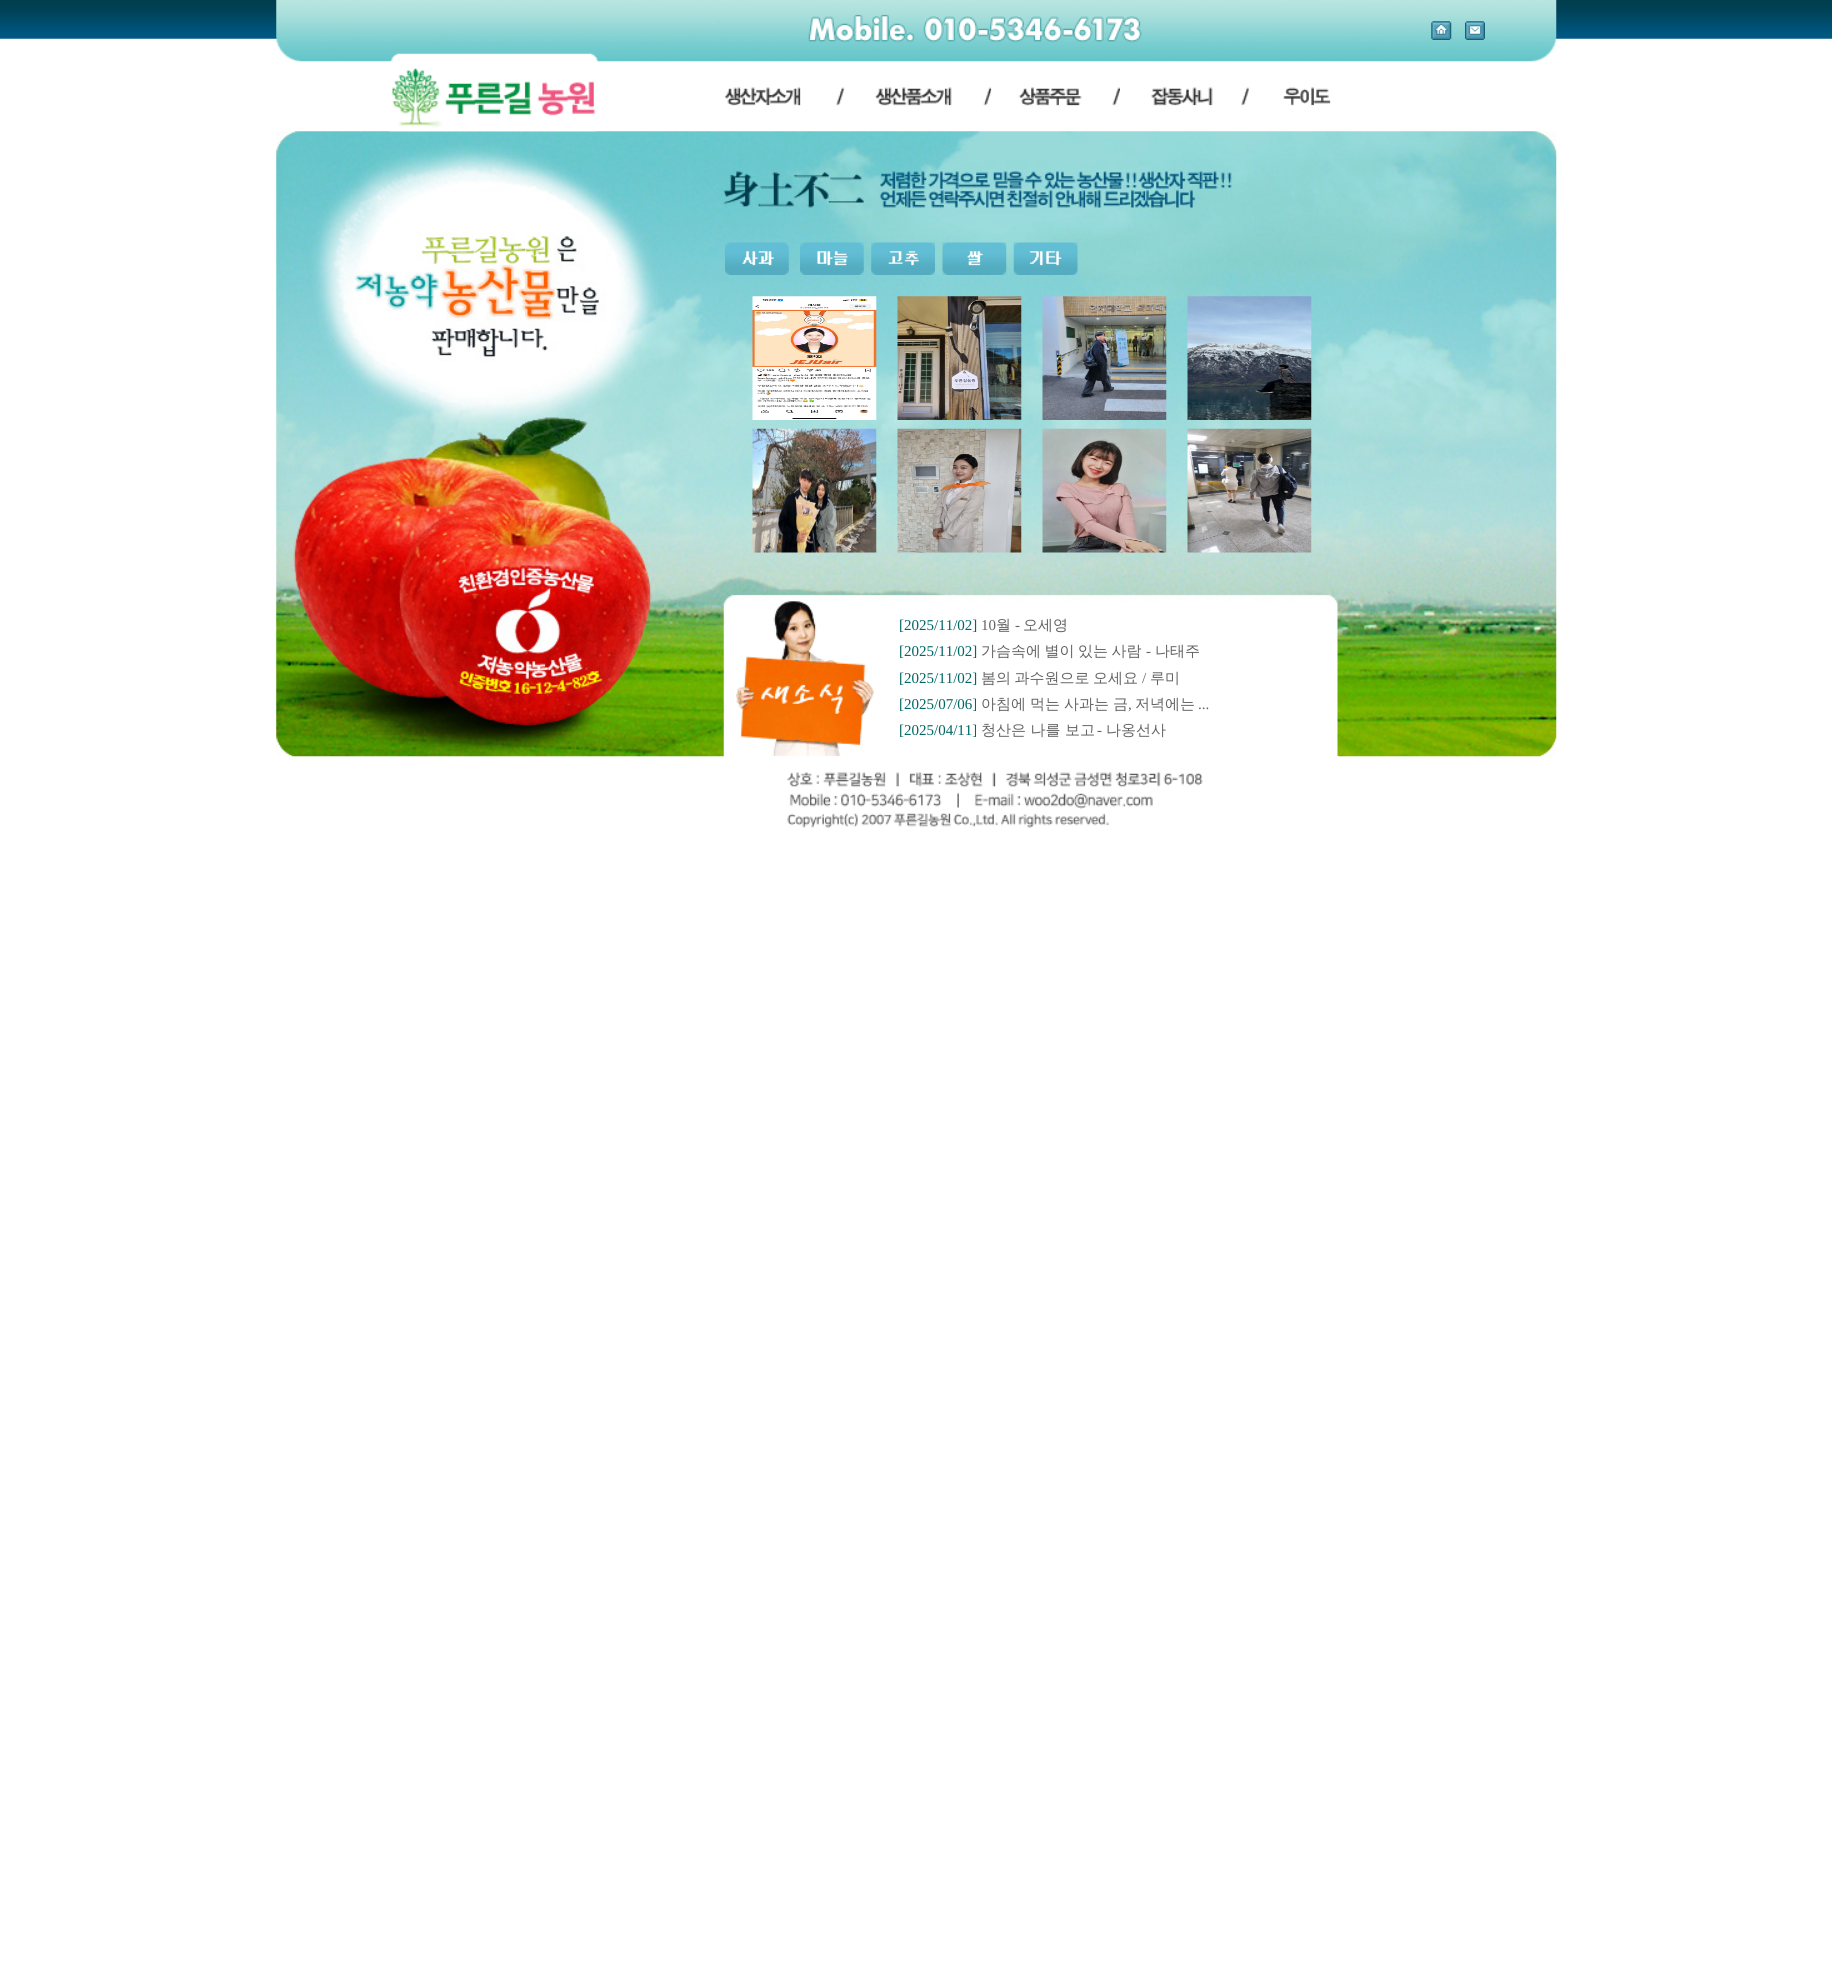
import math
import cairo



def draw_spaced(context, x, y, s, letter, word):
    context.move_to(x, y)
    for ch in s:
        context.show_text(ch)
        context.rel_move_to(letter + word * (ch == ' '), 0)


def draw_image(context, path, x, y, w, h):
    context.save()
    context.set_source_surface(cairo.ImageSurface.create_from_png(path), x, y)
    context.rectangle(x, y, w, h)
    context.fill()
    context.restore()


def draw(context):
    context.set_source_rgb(1, 1, 1)
    context.paint()
    draw_image(context, "images/1.png", 0, 0, 1832, 39)
    draw_image(context, "images/2.png", 276, 0, 1281, 62)
    draw_image(context, "images/3.png", 1431, 21, 21, 19)
    draw_image(context, "images/4.png", 1465, 21, 20, 19)
    draw_image(context, "images/14.png", 276, 131, 1281, 626)
    draw_image(context, "images/5.png", 390, 61, 207, 71)
    draw_image(context, "images/6.png", 724, 87, 77, 19)
    draw_image(context, "images/7.png", 836, 87, 8, 19)
    draw_image(context, "images/8.png", 843, 87, 109, 19)
    draw_image(context, "images/9.png", 983, 87, 9, 19)
    draw_image(context, "images/10.png", 991, 87, 91, 19)
    draw_image(context, "images/11.png", 1112, 87, 8, 19)
    draw_image(context, "images/12.png", 1151, 87, 62, 19)
    draw_image(context, "images/7.png", 1241, 87, 8, 19)
    draw_image(context, "images/13.png", 1248, 87, 83, 19)
    draw_image(context, "images/15.png", 725, 242, 64, 33)
    draw_image(context, "images/16.png", 800, 242, 64, 33)
    draw_image(context, "images/17.png", 871, 242, 64, 33)
    draw_image(context, "images/18.png", 942, 242, 65, 33)
    draw_image(context, "images/19.png", 1013, 242, 65, 33)
    draw_image(context, "images/20.png", 752, 296, 125, 124)
    draw_image(context, "images/21.png", 897, 296, 125, 124)
    draw_image(context, "images/22.png", 1042, 296, 125, 124)
    draw_image(context, "images/23.png", 1187, 296, 125, 124)
    draw_image(context, "images/24.png", 752, 428, 125, 125)
    draw_image(context, "images/25.png", 897, 428, 125, 125)
    draw_image(context, "images/26.png", 1042, 428, 125, 125)
    draw_image(context, "images/27.png", 1187, 428, 125, 125)
    draw_image(context, "images/28.png", 736, 601, 138, 156)
    draw_image(context, "images/29.png", 774, 756, 565, 72)
    context.select_font_face("Liberation Serif")
    context.set_font_size(15)
    context.set_source_rgb(0, 102 / 255, 102 / 255)
    context.move_to(899, 630)
    context.show_text("[2025/11/02]")
    context.set_source_rgb(99 / 255, 99 / 255, 99 / 255)
    context.move_to(981, 630)
    context.show_text("10")
    context.select_font_face("WenQuanYi Zen Hei Medium")
    context.move_to(996, 630)
    context.show_text("월")
    context.select_font_face("Liberation Serif")
    context.move_to(1015, 630)
    context.show_text("-")
    context.select_font_face("WenQuanYi Zen Hei Medium")
    context.move_to(1023, 630)
    context.show_text("오세영")
    context.select_font_face("Liberation Serif")
    context.set_source_rgb(0, 102 / 255, 102 / 255)
    context.move_to(899, 656)
    context.show_text("[2025/11/02]")
    context.select_font_face("WenQuanYi Zen Hei Medium")
    context.set_source_rgb(99 / 255, 99 / 255, 99 / 255)
    draw_spaced(context, 981, 656, "가슴속에 별이 있는 사람", 0, -1)
    context.select_font_face("Liberation Serif")
    context.move_to(1146, 656)
    context.show_text("-")
    context.select_font_face("WenQuanYi Zen Hei Medium")
    context.move_to(1155, 656)
    context.show_text("나태주")
    context.select_font_face("Liberation Serif")
    context.set_source_rgb(0, 102 / 255, 102 / 255)
    context.move_to(899, 683)
    context.show_text("[2025/11/02]")
    context.select_font_face("WenQuanYi Zen Hei Medium")
    context.set_source_rgb(99 / 255, 99 / 255, 99 / 255)
    draw_spaced(context, 981, 683, "봄의 과수원으로 오세요", 0, -1)
    context.select_font_face("Liberation Serif")
    context.move_to(1142, 683)
    context.show_text("/")
    context.select_font_face("WenQuanYi Zen Hei Medium")
    context.move_to(1150, 683)
    context.show_text("루미")
    context.select_font_face("Liberation Serif")
    context.set_source_rgb(0, 102 / 255, 102 / 255)
    context.move_to(899, 709)
    context.show_text("[2025/07/06]")
    context.select_font_face("WenQuanYi Zen Hei Medium")
    context.set_source_rgb(99 / 255, 99 / 255, 99 / 255)
    draw_spaced(context, 981, 709, "아침에 먹는 사과는 금", 0, -0.5)
    context.select_font_face("Liberation Serif")
    context.move_to(1128, 709)
    context.show_text(",")
    context.select_font_face("WenQuanYi Zen Hei Medium")
    context.move_to(1135, 709)
    context.show_text("저녁에는")
    context.select_font_face("Liberation Serif")
    context.move_to(1198, 709)
    context.show_text("...")
    context.set_source_rgb(0, 102 / 255, 102 / 255)
    context.move_to(899, 735)
    context.show_text("[2025/04/11]")
    context.select_font_face("WenQuanYi Zen Hei Medium")
    context.set_source_rgb(99 / 255, 99 / 255, 99 / 255)
    context.move_to(981, 735)
    context.show_text("청산은 나를 보고")
    context.select_font_face("Liberation Serif")
    context.move_to(1097, 735)
    context.show_text("-")
    context.select_font_face("WenQuanYi Zen Hei Medium")
    context.move_to(1106, 735)
    context.show_text("나옹선사")


surface = cairo.ImageSurface(cairo.Format.RGB24, 1832, 1988)
context = cairo.Context(surface)
options = cairo.FontOptions()
options.set_hint_metrics(cairo.HintMetrics.OFF)
options.set_hint_style(cairo.HintStyle.NONE)
context.set_font_options(options)
context.set_miter_limit(4)
draw(context)
surface.write_to_png("out.png")
